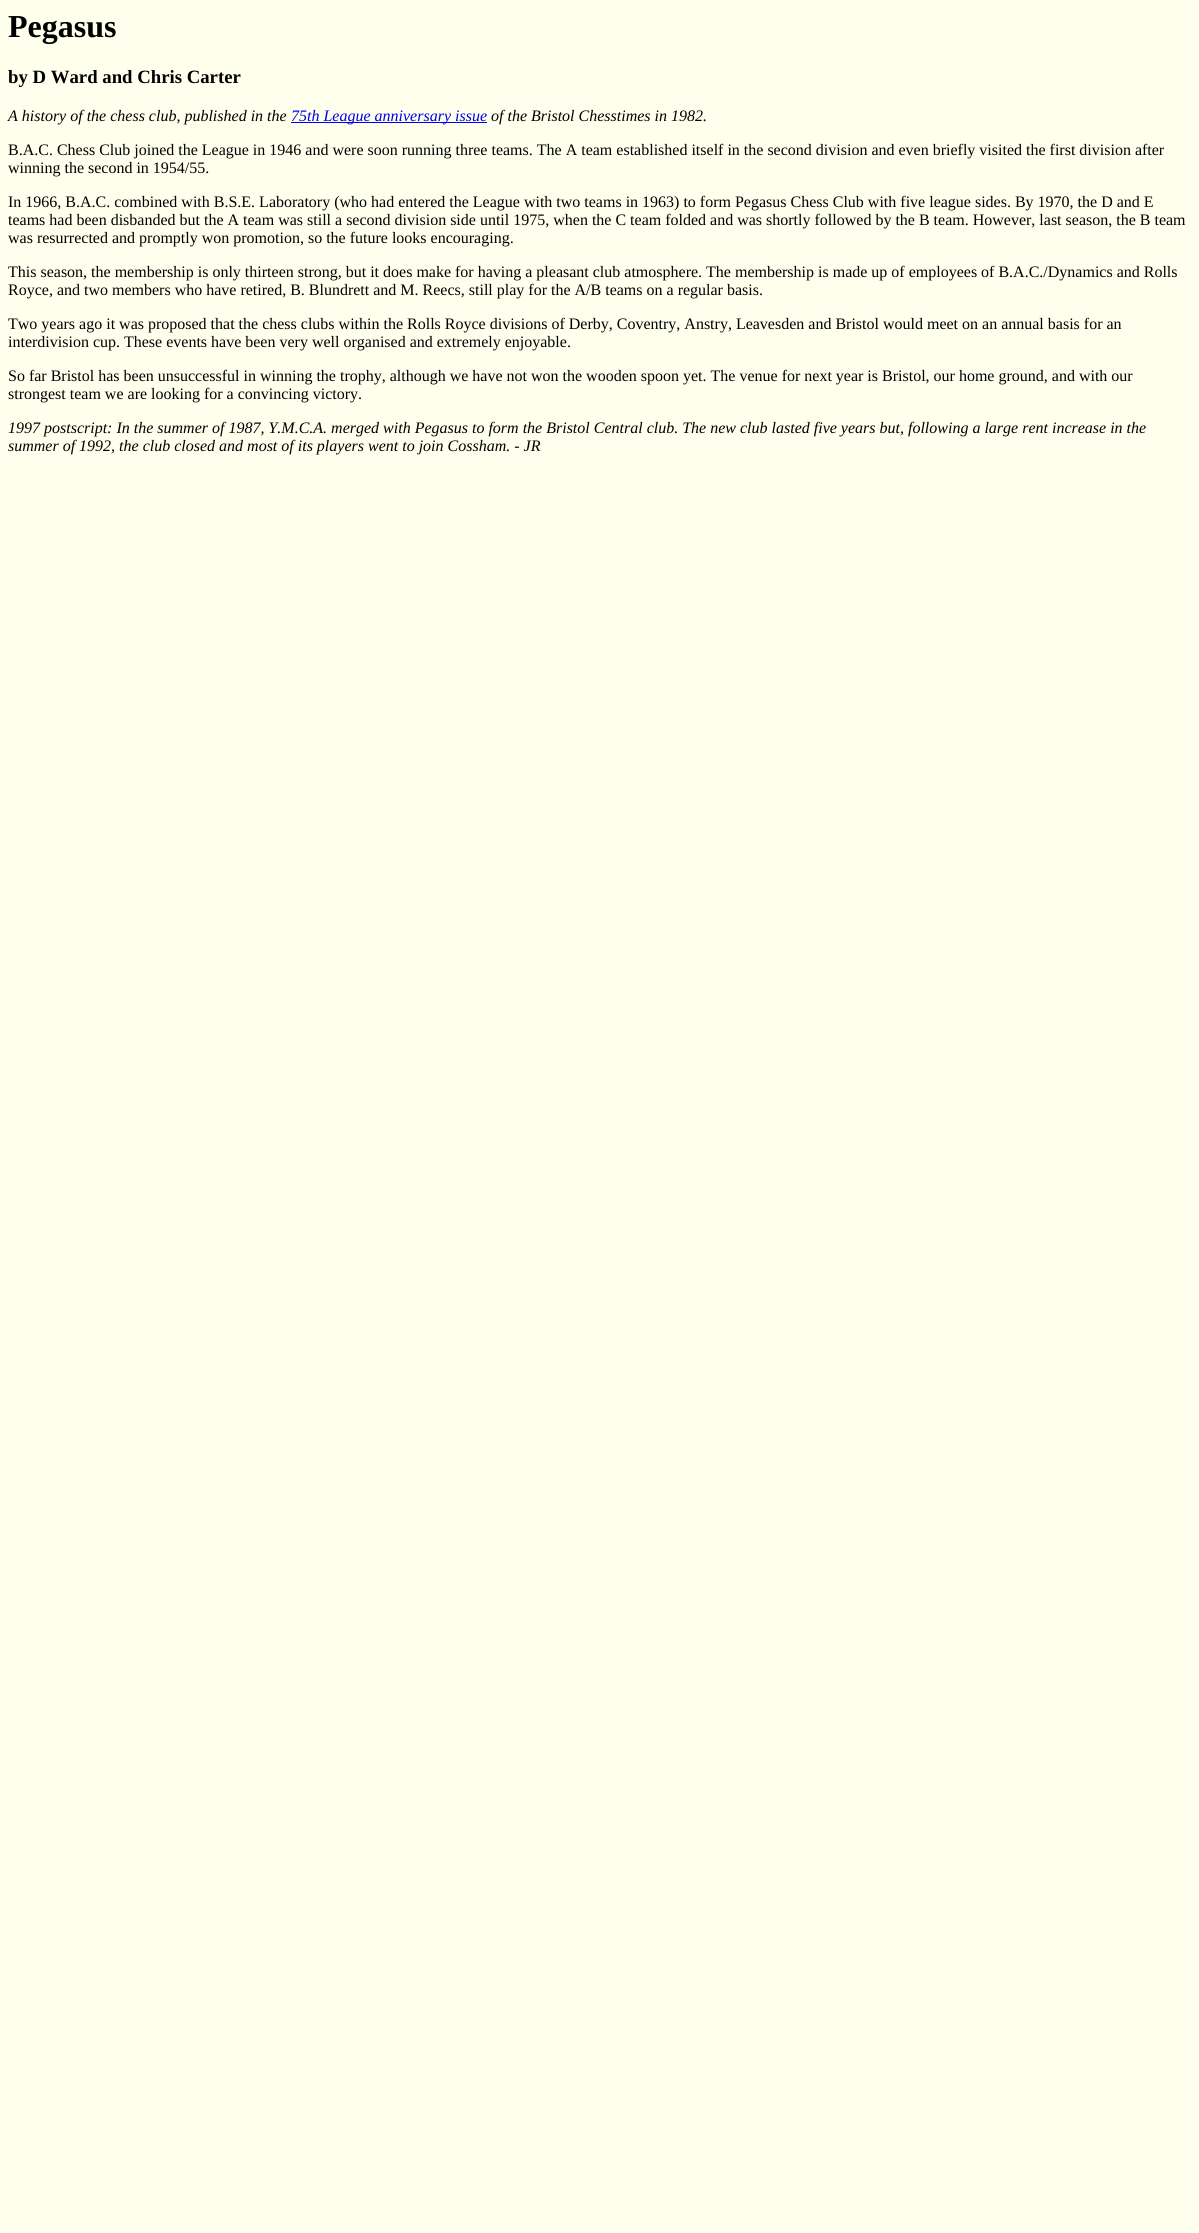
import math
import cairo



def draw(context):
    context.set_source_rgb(1, 1, 238 / 255)
    context.paint()
    context.set_source_rgb(0, 0, 238 / 255)
    context.rectangle(291, 122, 196, 1)
    context.fill()
    context.select_font_face("Liberation Serif", cairo.FontSlant.NORMAL, cairo.FontWeight.BOLD)
    context.set_font_size(32)
    context.set_source_rgb(0, 0, 0)
    context.move_to(8, 37)
    context.show_text("Pegasus")
    context.set_font_size(18.75)
    context.move_to(8, 83)
    context.show_text("by D Ward and Chris Carter")
    context.select_font_face("Liberation Serif", cairo.FontSlant.ITALIC)
    context.set_font_size(16)
    context.move_to(8, 121)
    context.show_text("A history of the chess club, published in the")
    context.set_source_rgb(0, 0, 238 / 255)
    context.move_to(291, 121)
    context.show_text("75th League anniversary issue")
    context.set_source_rgb(0, 0, 0)
    context.move_to(491, 121)
    context.show_text("of the Bristol Chesstimes in 1982.")
    context.select_font_face("Liberation Serif")
    context.move_to(8, 155)
    context.show_text("B.A.C. Chess Club joined the League in 1946 and were soon running three teams. The A team established itself in the second division and even briefly visited the first division after")
    context.move_to(8, 173)
    context.show_text("winning the second in 1954/55.")
    context.move_to(8, 207)
    context.show_text("In 1966, B.A.C. combined with B.S.E. Laboratory (who had entered the League with two teams in 1963) to form Pegasus Chess Club with five league sides. By 1970, the D and E")
    context.move_to(8, 225)
    context.show_text("teams had been disbanded but the A team was still a second division side until 1975, when the C team folded and was shortly followed by the B team. However, last season, the B team")
    context.move_to(8, 243)
    context.show_text("was resurrected and promptly won promotion, so the future looks encouraging.")
    context.move_to(8, 277)
    context.show_text("This season, the membership is only thirteen strong, but it does make for having a pleasant club atmosphere. The membership is made up of employees of B.A.C./Dynamics and Rolls")
    context.move_to(8, 295)
    context.show_text("Royce, and two members who have retired, B. Blundrett and M. Reecs, still play for the A/B teams on a regular basis.")
    context.move_to(8, 329)
    context.show_text("Two years ago it was proposed that the chess clubs within the Rolls Royce divisions of Derby, Coventry, Anstry, Leavesden and Bristol would meet on an annual basis for an")
    context.move_to(8, 347)
    context.show_text("interdivision cup. These events have been very well organised and extremely enjoyable.")
    context.move_to(8, 381)
    context.show_text("So far Bristol has been unsuccessful in winning the trophy, although we have not won the wooden spoon yet. The venue for next year is Bristol, our home ground, and with our")
    context.move_to(8, 399)
    context.show_text("strongest team we are looking for a convincing victory.")
    context.select_font_face("Liberation Serif", cairo.FontSlant.ITALIC)
    context.move_to(8, 433)
    context.show_text("1997 postscript: In the summer of 1987, Y.M.C.A. merged with Pegasus to form the Bristol Central club. The new club lasted five years but, following a large rent increase in the")
    context.move_to(8, 451)
    context.show_text("summer of 1992, the club closed and most of its players went to join Cossham. - JR")


surface = cairo.ImageSurface(cairo.Format.RGB24, 1199, 2233)
context = cairo.Context(surface)
options = cairo.FontOptions()
options.set_hint_metrics(cairo.HintMetrics.OFF)
options.set_hint_style(cairo.HintStyle.NONE)
context.set_font_options(options)
context.set_miter_limit(4)
draw(context)
surface.write_to_png("out.png")
